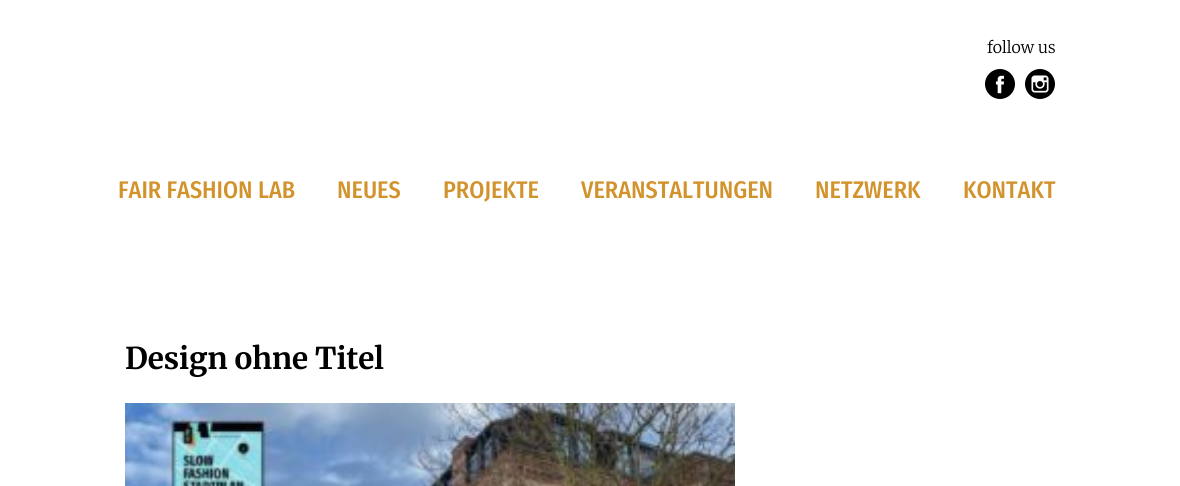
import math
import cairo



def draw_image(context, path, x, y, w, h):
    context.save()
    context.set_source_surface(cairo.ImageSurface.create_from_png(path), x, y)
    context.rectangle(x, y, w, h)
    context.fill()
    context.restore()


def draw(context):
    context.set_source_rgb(1, 1, 1)
    context.paint()
    draw_image(context, "images/1.png", 985, 69, 30, 30)
    draw_image(context, "images/2.png", 1025, 69, 30, 30)
    draw_image(context, "images/3.png", 125, 403, 610, 83)
    context.select_font_face("Merriweather Light")
    context.set_font_size(16)
    context.set_source_rgb(0, 0, 0)
    context.move_to(987, 53)
    context.show_text("follow us")
    context.select_font_face("Fira Sans Condensed Medium")
    context.set_font_size(24)
    context.set_source_rgb(210 / 255, 146 / 255, 44 / 255)
    context.move_to(118, 198)
    context.show_text("FAIR FASHION LAB")
    context.move_to(337, 198)
    context.show_text("NEUES")
    context.move_to(443, 198)
    context.show_text("PROJEKTE")
    context.move_to(581, 198)
    context.show_text("VERANSTALTUNGEN")
    context.move_to(815, 198)
    context.show_text("NETZWERK")
    context.move_to(963, 198)
    context.show_text("KONTAKT")
    context.select_font_face("Merriweather", cairo.FontSlant.NORMAL, cairo.FontWeight.BOLD)
    context.set_font_size(30)
    context.set_source_rgb(0, 0, 0)
    context.move_to(125, 369)
    context.show_text("Design ohne Titel")


surface = cairo.ImageSurface(cairo.Format.RGB24, 1180, 486)
context = cairo.Context(surface)
options = cairo.FontOptions()
options.set_hint_metrics(cairo.HintMetrics.OFF)
options.set_hint_style(cairo.HintStyle.NONE)
context.set_font_options(options)
context.set_miter_limit(4)
draw(context)
surface.write_to_png("out.png")
